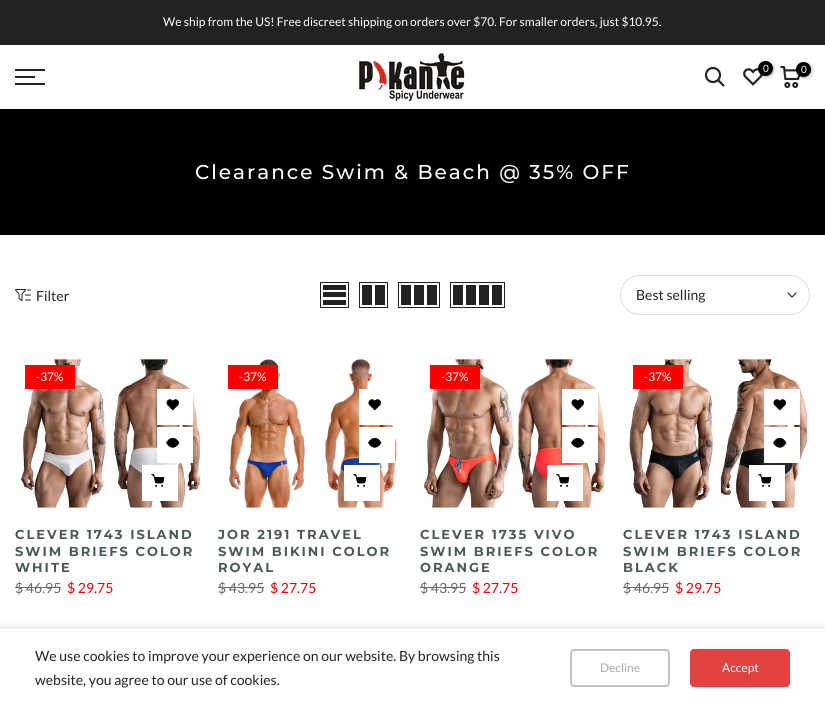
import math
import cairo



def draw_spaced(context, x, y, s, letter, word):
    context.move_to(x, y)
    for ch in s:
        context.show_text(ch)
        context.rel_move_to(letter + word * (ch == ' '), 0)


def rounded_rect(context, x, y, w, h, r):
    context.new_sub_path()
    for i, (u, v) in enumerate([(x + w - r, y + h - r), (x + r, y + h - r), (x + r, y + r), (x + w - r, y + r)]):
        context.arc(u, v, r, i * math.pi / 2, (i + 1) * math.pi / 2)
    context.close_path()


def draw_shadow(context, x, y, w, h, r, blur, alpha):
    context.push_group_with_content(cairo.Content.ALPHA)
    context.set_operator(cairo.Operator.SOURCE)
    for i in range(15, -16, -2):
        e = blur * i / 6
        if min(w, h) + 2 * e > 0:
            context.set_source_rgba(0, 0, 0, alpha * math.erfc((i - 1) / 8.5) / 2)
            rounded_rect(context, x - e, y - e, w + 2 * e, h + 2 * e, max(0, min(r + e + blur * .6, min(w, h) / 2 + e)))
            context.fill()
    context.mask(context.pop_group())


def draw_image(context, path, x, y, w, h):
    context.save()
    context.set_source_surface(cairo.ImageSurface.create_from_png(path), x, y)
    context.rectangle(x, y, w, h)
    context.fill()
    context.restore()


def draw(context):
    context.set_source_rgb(1, 1, 1)
    context.paint()
    context.set_source_rgb(34 / 255, 34 / 255, 34 / 255)
    context.rectangle(0, 0, 825, 45)
    context.fill()
    context.rectangle(15, 69, 30, 2)
    context.fill()
    context.rectangle(15, 76, 20, 2)
    context.fill()
    context.rectangle(15, 83, 30, 2)
    context.fill()
    draw_image(context, "images/1.png", 357, 50, 108, 52)
    context.arc(713, 75, 7, 0, 2 * math.pi)
    context.set_line_width(2.2)
    context.stroke()
    context.new_path()
    context.move_to(718, 80)
    context.line_to(724, 86)
    context.stroke()
    draw_image(context, "images/2.png", 743, 68, 20, 18)
    context.set_source_rgb(0, 0, 0)
    draw_shadow(context, 759, 62, 15, 15, 7.5, 1.5, 0.3)
    context.set_source_rgb(0, 0, 0)
    context.arc(765.5, 68.5, 7.5, 0, 2 * math.pi)
    context.fill()
    draw_image(context, "images/3.png", 780, 66, 20, 22)
    context.set_source_rgb(0, 0, 0)
    draw_shadow(context, 797, 63, 15, 15, 7.5, 1.5, 0.3)
    context.set_source_rgb(0, 0, 0)
    context.arc(803.5, 69.5, 7.5, 0, 2 * math.pi)
    context.fill()
    context.rectangle(0, 109, 825, 126)
    context.fill()
    draw_image(context, "images/4.png", 15, 289, 16, 12)
    context.rectangle(320.5, 282.5, 28, 25)
    context.set_source_rgb(34 / 255, 34 / 255, 34 / 255)
    context.set_line_width(1)
    context.stroke()
    context.rectangle(323, 300, 23, 5)
    context.fill()
    context.rectangle(323, 292, 23, 5)
    context.fill()
    context.rectangle(323, 285, 23, 5)
    context.fill()
    context.rectangle(359.5, 282.5, 28, 25)
    context.stroke()
    context.rectangle(375, 285, 10, 20)
    context.fill()
    context.rectangle(362, 285, 10, 20)
    context.fill()
    context.rectangle(398.5, 282.5, 41, 25)
    context.stroke()
    context.rectangle(427, 285, 10, 20)
    context.fill()
    context.rectangle(414, 285, 10, 20)
    context.fill()
    context.rectangle(401, 285, 10, 20)
    context.fill()
    context.rectangle(450.5, 282.5, 54, 25)
    context.stroke()
    context.rectangle(492, 285, 10, 20)
    context.fill()
    context.rectangle(479, 285, 10, 20)
    context.fill()
    context.rectangle(466, 285, 10, 20)
    context.fill()
    context.rectangle(453, 285, 10, 20)
    context.fill()
    rounded_rect(context, 620.5, 275.5, 189, 39, 19.5)
    context.set_source_rgb(221 / 255, 221 / 255, 221 / 255)
    context.stroke()
    context.new_path()
    context.move_to(796, 293)
    context.line_to(792, 297)
    context.line_to(788, 293)
    context.set_source_rgb(34 / 255, 34 / 255, 34 / 255)
    context.set_line_width(1.1)
    context.set_line_cap(cairo.LineCap.SQUARE)
    context.stroke()
    draw_image(context, "images/5.png", 20, 357, 182, 152)
    context.set_source_rgb(250 / 255, 0, 0)
    context.rectangle(25, 365, 50, 24)
    context.fill()
    context.set_source_rgb(1, 1, 1)
    context.rectangle(157, 389, 36, 36)
    context.fill()
    draw_image(context, "images/6.png", 166, 399, 13, 12)
    context.rectangle(157, 427, 36, 36)
    context.fill()
    draw_image(context, "images/7.png", 166, 437, 14, 11)
    context.rectangle(142, 465, 36, 36)
    context.fill()
    draw_image(context, "images/8.png", 151, 474, 14, 13)
    context.set_source_rgb(105 / 255, 105 / 255, 105 / 255)
    context.rectangle(15, 587, 46, 1)
    context.fill()
    draw_image(context, "images/9.png", 227, 359, 172, 150)
    context.set_source_rgb(250 / 255, 0, 0)
    context.rectangle(228, 365, 50, 24)
    context.fill()
    context.set_source_rgb(1, 1, 1)
    context.rectangle(359, 389, 36, 36)
    context.fill()
    draw_image(context, "images/6.png", 368, 399, 13, 12)
    context.rectangle(359, 427, 36, 36)
    context.fill()
    draw_image(context, "images/7.png", 368, 437, 14, 11)
    context.rectangle(344, 465, 36, 36)
    context.fill()
    draw_image(context, "images/8.png", 353, 474, 14, 13)
    context.set_source_rgb(105 / 255, 105 / 255, 105 / 255)
    context.rectangle(218, 587, 46, 1)
    context.fill()
    draw_image(context, "images/10.png", 424, 357, 183, 152)
    context.set_source_rgb(250 / 255, 0, 0)
    context.rectangle(430, 365, 50, 24)
    context.fill()
    context.set_source_rgb(1, 1, 1)
    context.rectangle(562, 389, 36, 36)
    context.fill()
    draw_image(context, "images/6.png", 571, 399, 13, 12)
    context.rectangle(562, 427, 36, 36)
    context.fill()
    draw_image(context, "images/7.png", 571, 437, 14, 11)
    context.rectangle(547, 465, 36, 36)
    context.fill()
    draw_image(context, "images/8.png", 556, 474, 14, 13)
    context.set_source_rgb(105 / 255, 105 / 255, 105 / 255)
    context.rectangle(420, 587, 46, 1)
    context.fill()
    draw_image(context, "images/11.png", 629, 357, 180, 152)
    context.set_source_rgb(250 / 255, 0, 0)
    context.rectangle(633, 365, 50, 24)
    context.fill()
    context.set_source_rgb(1, 1, 1)
    context.rectangle(764, 389, 36, 36)
    context.fill()
    draw_image(context, "images/6.png", 773, 399, 13, 12)
    context.rectangle(764, 427, 36, 36)
    context.fill()
    draw_image(context, "images/7.png", 773, 437, 14, 11)
    context.rectangle(749, 465, 36, 36)
    context.fill()
    draw_image(context, "images/8.png", 758, 474, 14, 13)
    context.set_source_rgb(105 / 255, 105 / 255, 105 / 255)
    context.rectangle(623, 587, 46, 1)
    context.fill()
    context.set_source_rgb(0, 0, 0)
    draw_shadow(context, 0, 629, 825, 78, 0, 4.5, 0.14)
    context.set_source_rgb(1, 1, 1)
    context.rectangle(0, 629, 825, 78)
    context.fill()
    rounded_rect(context, 571, 650, 98, 36, 3)
    context.set_source_rgb(195 / 255, 195 / 255, 195 / 255)
    context.set_line_width(2)
    context.set_line_cap(cairo.LineCap.BUTT)
    context.stroke()
    context.set_source_rgb(226 / 255, 66 / 255, 66 / 255)
    rounded_rect(context, 690, 649, 100, 38, 4)
    context.fill()
    context.select_font_face("Lato")
    context.set_font_size(12)
    context.set_source_rgb(1, 1, 1)
    context.move_to(163, 26)
    context.show_text("We ship from the US! Free discreet shipping on orders over $70. For smaller orders, just $10.95.")
    context.set_font_size(10)
    context.move_to(763, 72)
    context.show_text("0")
    context.move_to(801, 73)
    context.show_text("0")
    context.select_font_face("Montserrat Medium")
    context.set_font_size(20)
    draw_spaced(context, 195, 179, "Clearance Swim & Beach @ 35% OFF", 2, 0)
    context.select_font_face("Lato")
    context.set_font_size(14)
    context.set_source_rgb(34 / 255, 34 / 255, 34 / 255)
    context.move_to(36, 301)
    context.show_text("Filter")
    context.move_to(636, 300)
    context.show_text("Best selling")
    context.set_font_size(12)
    context.set_source_rgb(1, 1, 1)
    context.move_to(36, 381)
    context.show_text("-37%")
    context.select_font_face("Montserrat", cairo.FontSlant.NORMAL, cairo.FontWeight.BOLD)
    context.set_font_size(13)
    context.set_source_rgb(77 / 255, 89 / 255, 89 / 255)
    draw_spaced(context, 15, 539, "CLEVER 1743 ISLAND", 2, 0)
    draw_spaced(context, 15, 556, "SWIM BRIEFS COLOR", 2, 0)
    draw_spaced(context, 15, 572, "WHITE", 2, 0)
    context.select_font_face("Lato")
    context.set_font_size(14)
    context.set_source_rgb(105 / 255, 105 / 255, 105 / 255)
    context.move_to(15, 593)
    context.show_text("$ 46.95")
    context.set_source_rgb(236 / 255, 1 / 255, 1 / 255)
    context.move_to(67, 593)
    context.show_text("$ 29.75")
    context.set_font_size(12)
    context.set_source_rgb(1, 1, 1)
    context.move_to(239, 381)
    context.show_text("-37%")
    context.select_font_face("Montserrat", cairo.FontSlant.NORMAL, cairo.FontWeight.BOLD)
    context.set_font_size(13)
    context.set_source_rgb(77 / 255, 89 / 255, 89 / 255)
    draw_spaced(context, 218, 539, "JOR 2191 TRAVEL", 2, 0)
    draw_spaced(context, 218, 556, "SWIM BIKINI COLOR", 2, 0)
    draw_spaced(context, 218, 572, "ROYAL", 2, 0)
    context.select_font_face("Lato")
    context.set_font_size(14)
    context.set_source_rgb(105 / 255, 105 / 255, 105 / 255)
    context.move_to(218, 593)
    context.show_text("$ 43.95")
    context.set_source_rgb(236 / 255, 1 / 255, 1 / 255)
    context.move_to(270, 593)
    context.show_text("$ 27.75")
    context.set_font_size(12)
    context.set_source_rgb(1, 1, 1)
    context.move_to(441, 381)
    context.show_text("-37%")
    context.select_font_face("Montserrat", cairo.FontSlant.NORMAL, cairo.FontWeight.BOLD)
    context.set_font_size(13)
    context.set_source_rgb(77 / 255, 89 / 255, 89 / 255)
    draw_spaced(context, 420, 539, "CLEVER 1735 VIVO", 2, 0)
    draw_spaced(context, 420, 556, "SWIM BRIEFS COLOR", 2, 0)
    draw_spaced(context, 420, 572, "ORANGE", 2, 0)
    context.select_font_face("Lato")
    context.set_font_size(14)
    context.set_source_rgb(105 / 255, 105 / 255, 105 / 255)
    context.move_to(420, 593)
    context.show_text("$ 43.95")
    context.set_source_rgb(236 / 255, 1 / 255, 1 / 255)
    context.move_to(472, 593)
    context.show_text("$ 27.75")
    context.set_font_size(12)
    context.set_source_rgb(1, 1, 1)
    context.move_to(644, 381)
    context.show_text("-37%")
    context.select_font_face("Montserrat", cairo.FontSlant.NORMAL, cairo.FontWeight.BOLD)
    context.set_font_size(13)
    context.set_source_rgb(77 / 255, 89 / 255, 89 / 255)
    draw_spaced(context, 623, 539, "CLEVER 1743 ISLAND", 2, 0)
    draw_spaced(context, 623, 556, "SWIM BRIEFS COLOR", 2, 0)
    draw_spaced(context, 623, 572, "BLACK", 2, 0)
    context.select_font_face("Lato")
    context.set_font_size(14)
    context.set_source_rgb(105 / 255, 105 / 255, 105 / 255)
    context.move_to(623, 593)
    context.show_text("$ 46.95")
    context.set_source_rgb(236 / 255, 1 / 255, 1 / 255)
    context.move_to(675, 593)
    context.show_text("$ 29.75")
    context.set_source_rgb(34 / 255, 34 / 255, 34 / 255)
    context.move_to(35, 661)
    context.show_text("We use cookies to improve your experience on our website. By browsing this")
    context.move_to(35, 685)
    context.show_text("website, you agree to our use of cookies.")
    context.set_font_size(12)
    context.set_source_rgb(171 / 255, 171 / 255, 171 / 255)
    context.move_to(600, 672)
    context.show_text("Decline")
    context.set_source_rgb(1, 1, 1)
    context.move_to(722, 672)
    context.show_text("Accept")


surface = cairo.ImageSurface(cairo.Format.RGB24, 825, 707)
context = cairo.Context(surface)
options = cairo.FontOptions()
options.set_hint_metrics(cairo.HintMetrics.OFF)
options.set_hint_style(cairo.HintStyle.NONE)
context.set_font_options(options)
context.set_miter_limit(4)
draw(context)
surface.write_to_png("out.png")
